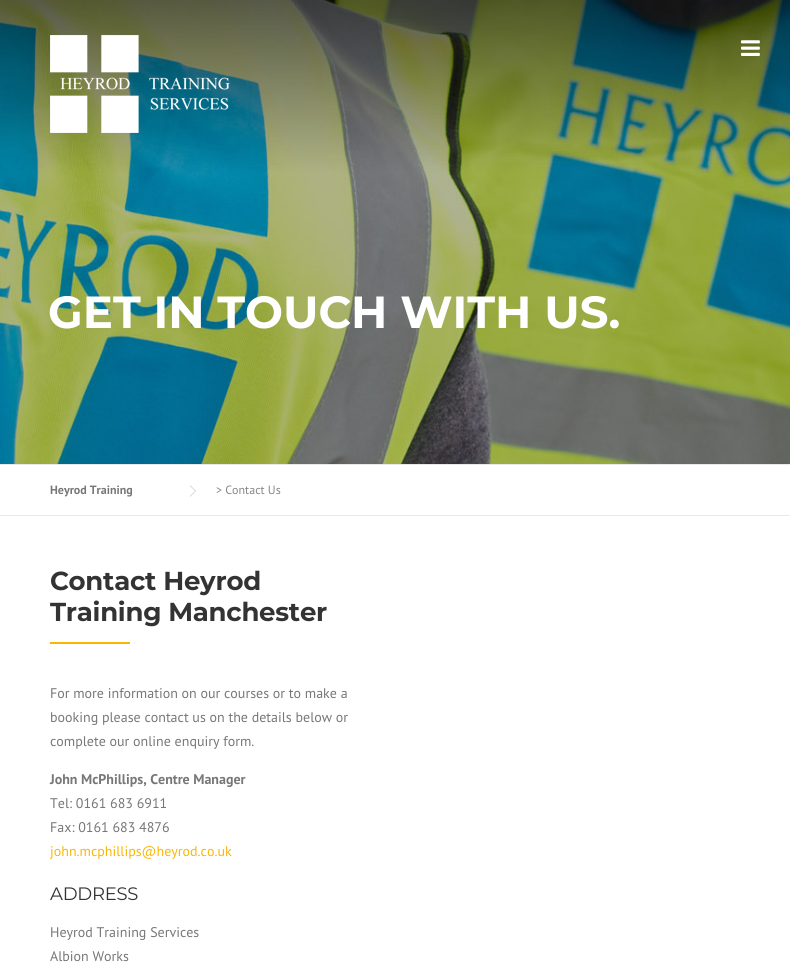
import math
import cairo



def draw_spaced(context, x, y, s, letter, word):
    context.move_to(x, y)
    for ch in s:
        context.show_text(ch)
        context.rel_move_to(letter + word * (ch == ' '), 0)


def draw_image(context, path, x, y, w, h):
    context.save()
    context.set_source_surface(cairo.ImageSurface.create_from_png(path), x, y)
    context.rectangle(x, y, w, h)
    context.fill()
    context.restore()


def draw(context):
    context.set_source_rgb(1, 1, 1)
    context.paint()
    draw_image(context, "images/3.png", 0, 0, 790, 464)
    draw_image(context, "images/1.png", 50, 35, 180, 98)
    draw_image(context, "images/2.png", 741, 40, 19, 16)
    context.set_source_rgb(233 / 255, 233 / 255, 233 / 255)
    context.rectangle(0, 464, 790, 1)
    context.fill()
    context.rectangle(0, 515, 790, 1)
    context.fill()
    context.set_source_rgb(204 / 255, 204 / 255, 204 / 255)
    context.new_path()
    context.move_to(190, 497)
    context.line_to(190, 485)
    context.line_to(196, 491)
    context.close_path()
    context.fill()
    context.set_source_rgb(1, 1, 1)
    context.new_path()
    context.move_to(190, 496)
    context.line_to(190, 486)
    context.line_to(195, 491)
    context.close_path()
    context.fill()
    context.set_source_rgb(250 / 255, 183 / 255, 2 / 255)
    context.rectangle(50, 642, 80, 2)
    context.fill()
    context.select_font_face("Montserrat", cairo.FontSlant.NORMAL, cairo.FontWeight.BOLD)
    context.set_font_size(45)
    context.set_source_rgb(1, 1, 1)
    context.move_to(48, 328)
    context.show_text("GET IN TOUCH WITH US.")
    context.select_font_face("PT Sans", cairo.FontSlant.NORMAL, cairo.FontWeight.BOLD)
    context.set_font_size(12)
    context.set_source_rgb(119 / 255, 119 / 255, 119 / 255)
    context.move_to(50, 494)
    context.show_text("Heyrod Training")
    context.select_font_face("PT Sans")
    context.set_source_rgb(133 / 255, 133 / 255, 133 / 255)
    context.move_to(216, 494)
    context.show_text("> Contact Us")
    context.select_font_face("Montserrat", cairo.FontSlant.NORMAL, cairo.FontWeight.BOLD)
    context.set_font_size(26)
    context.set_source_rgb(51 / 255, 51 / 255, 51 / 255)
    draw_spaced(context, 50, 590, "Contact Heyrod", -0.25, 0)
    draw_spaced(context, 50, 621, "Training Manchester", -0.25, 0)
    context.select_font_face("PT Sans")
    context.set_font_size(14)
    context.set_source_rgb(119 / 255, 119 / 255, 119 / 255)
    context.move_to(50, 698)
    context.show_text("For more information on our courses or to make a")
    context.move_to(50, 722)
    context.show_text("booking please contact us on the details below or")
    context.move_to(50, 746)
    context.show_text("complete our online enquiry form.")
    context.select_font_face("PT Sans", cairo.FontSlant.NORMAL, cairo.FontWeight.BOLD)
    context.move_to(50, 784)
    context.show_text("John McPhillips, Centre Manager")
    context.select_font_face("PT Sans")
    context.move_to(50, 808)
    context.show_text("Tel: 0161 683 6911")
    context.move_to(50, 832)
    context.show_text("Fax: 0161 683 4876")
    context.set_source_rgb(250 / 255, 183 / 255, 2 / 255)
    context.move_to(50, 856)
    context.show_text("john.mcphillips@heyrod.co.uk")
    context.select_font_face("Montserrat")
    context.set_font_size(18)
    context.set_source_rgb(51 / 255, 51 / 255, 51 / 255)
    draw_spaced(context, 50, 900, "ADDRESS", -0.25, 0)
    context.select_font_face("PT Sans")
    context.set_font_size(14)
    context.set_source_rgb(119 / 255, 119 / 255, 119 / 255)
    context.move_to(50, 937)
    context.show_text("Heyrod Training Services")
    context.move_to(50, 961)
    context.show_text("Albion Works")


surface = cairo.ImageSurface(cairo.Format.RGB24, 790, 962)
context = cairo.Context(surface)
options = cairo.FontOptions()
options.set_hint_metrics(cairo.HintMetrics.OFF)
options.set_hint_style(cairo.HintStyle.NONE)
context.set_font_options(options)
context.set_miter_limit(4)
draw(context)
surface.write_to_png("out.png")
